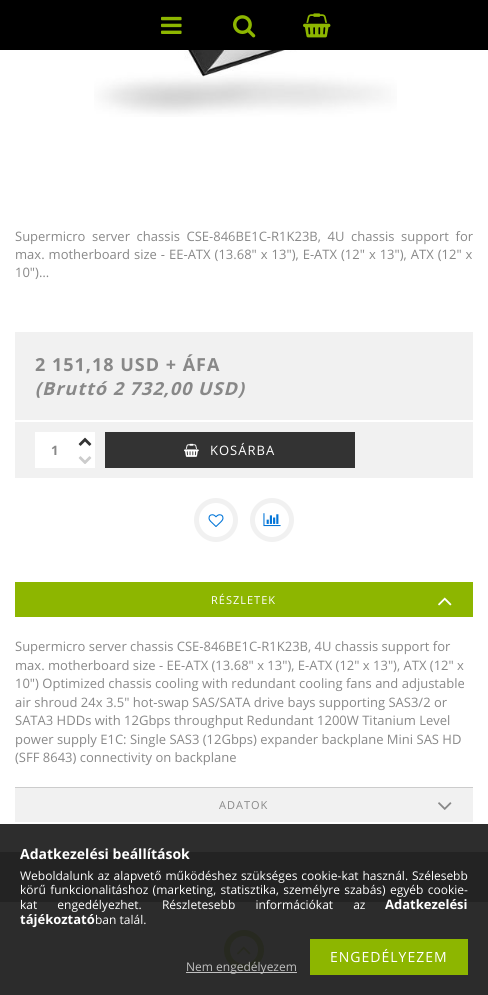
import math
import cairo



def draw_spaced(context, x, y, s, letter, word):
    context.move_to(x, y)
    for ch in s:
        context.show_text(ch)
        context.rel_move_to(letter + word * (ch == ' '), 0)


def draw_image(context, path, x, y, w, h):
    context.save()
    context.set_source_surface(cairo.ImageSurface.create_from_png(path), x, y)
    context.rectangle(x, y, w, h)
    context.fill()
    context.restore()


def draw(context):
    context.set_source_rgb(1, 1, 1)
    context.paint()
    context.set_source_rgb(45 / 255, 45 / 255, 45 / 255)
    context.rectangle(0, 824, 488, 28)
    context.fill()
    context.set_source_rgb(0, 0, 0)
    context.rectangle(0, 0, 488, 50)
    context.fill()
    draw_image(context, "images/1.png", 161, 16, 21, 18)
    draw_image(context, "images/2.png", 233, 15, 23, 23)
    draw_image(context, "images/3.png", 303, 13, 28, 25)
    draw_image(context, "images/4.png", 94, 50, 303, 67)
    context.set_source_rgb(241 / 255, 241 / 255, 241 / 255)
    context.rectangle(15, 332, 458, 88)
    context.fill()
    context.rectangle(15, 422, 458, 56)
    context.fill()
    context.set_source_rgb(1, 1, 1)
    context.rectangle(35, 432, 40, 36)
    context.fill()
    context.rectangle(75, 432, 20, 36)
    context.fill()
    draw_image(context, "images/5.png", 78, 437, 14, 9)
    draw_image(context, "images/6.png", 78, 456, 14, 8)
    context.set_source_rgb(51 / 255, 51 / 255, 51 / 255)
    context.rectangle(105, 432, 250, 36)
    context.fill()
    draw_image(context, "images/7.png", 184, 443, 15, 14)
    context.arc(216, 520, 19.5, 0, 2 * math.pi)
    context.set_source_rgb(241 / 255, 241 / 255, 241 / 255)
    context.set_line_width(5)
    context.stroke()
    draw_image(context, "images/8.png", 208, 514, 16, 13)
    context.arc(272, 520, 19.5, 0, 2 * math.pi)
    context.stroke()
    draw_image(context, "images/9.png", 263, 513, 18, 14)
    context.set_source_rgb(141 / 255, 182 / 255, 0)
    context.rectangle(15, 582, 458, 35)
    context.fill()
    draw_image(context, "images/10.png", 438, 597, 14, 9)
    context.set_source_rgb(241 / 255, 241 / 255, 241 / 255)
    context.rectangle(15, 788, 458, 34)
    context.fill()
    context.set_source_rgb(204 / 255, 204 / 255, 204 / 255)
    context.rectangle(15, 787, 458, 1)
    context.fill()
    draw_image(context, "images/11.png", 438, 802, 14, 8)
    context.set_source_rgb(35 / 255, 35 / 255, 35 / 255)
    context.rectangle(0, 852, 488, 50)
    context.fill()
    context.set_source_rgb(44 / 255, 44 / 255, 44 / 255)
    context.rectangle(0, 902, 488, 93)
    context.fill()
    context.set_source_rgb(141 / 255, 182 / 255, 0)
    context.rectangle(310, 939, 158, 36)
    context.fill()
    context.set_source_rgb(192 / 255, 192 / 255, 192 / 255)
    context.rectangle(186, 972, 111, 1)
    context.fill()
    context.arc(244, 950, 17, 0, 2 * math.pi)
    context.set_source_rgb(39 / 255, 41 / 255, 32 / 255)
    context.set_line_width(6)
    context.stroke()
    draw_image(context, "images/12.png", 237, 946, 14, 9)
    context.select_font_face("Open Sans")
    context.set_font_size(13)
    context.set_source_rgb(136 / 255, 136 / 255, 136 / 255)
    draw_spaced(context, 15, 241, "Supermicro server chassis CSE-846BE1C-R1K23B, 4U chassis support for", 0, 3.25)
    draw_spaced(context, 15, 259, "max. motherboard size - EE-ATX (13.68\" x 13\"), E-ATX (12\" x 13\"), ATX (12\" x", 0, 0.6)
    context.move_to(15, 277)
    context.show_text("10\")…")
    context.select_font_face("Open Sans", cairo.FontSlant.NORMAL, cairo.FontWeight.BOLD)
    context.set_font_size(18)
    draw_spaced(context, 35, 371, "2 151,18 USD + ÁFA", 1, 0)
    context.select_font_face("Open Sans", cairo.FontSlant.ITALIC, cairo.FontWeight.BOLD)
    draw_spaced(context, 35, 395, "(Bruttó 2 732,00 USD)", 1, 0)
    context.select_font_face("Open Sans", cairo.FontSlant.NORMAL, cairo.FontWeight.BOLD)
    context.set_font_size(13)
    context.move_to(51, 455)
    context.show_text("1")
    context.select_font_face("Open Sans")
    context.set_source_rgb(1, 1, 1)
    draw_spaced(context, 210, 455, "KOSÁRBA", 1, 0)
    context.set_font_size(11)
    draw_spaced(context, 211, 604, "RÉSZLETEK", 1, 0)
    context.set_font_size(13)
    context.set_source_rgb(136 / 255, 136 / 255, 136 / 255)
    context.move_to(15, 651)
    context.show_text("Supermicro server chassis CSE-846BE1C-R1K23B, 4U chassis support for")
    context.move_to(15, 670)
    context.show_text("max. motherboard size - EE-ATX (13.68\" x 13\"), E-ATX (12\" x 13\"), ATX (12\" x")
    context.move_to(15, 688)
    context.show_text("10\") Optimized chassis cooling with redundant cooling fans and adjustable")
    context.move_to(15, 707)
    context.show_text("air shroud 24x 3.5\" hot-swap SAS/SATA drive bays supporting SAS3/2 or")
    context.move_to(15, 725)
    context.show_text("SATA3 HDDs with 12Gbps throughput Redundant 1200W Titanium Level")
    context.move_to(15, 744)
    context.show_text("power supply E1C: Single SAS3 (12Gbps) expander backplane Mini SAS HD")
    context.move_to(15, 762)
    context.show_text("(SFF 8643) connectivity on backplane")
    context.set_font_size(11)
    draw_spaced(context, 219, 809, "ADATOK", 1, 0)
    context.select_font_face("Open Sans", cairo.FontSlant.NORMAL, cairo.FontWeight.BOLD)
    context.set_font_size(14)
    context.set_source_rgb(1, 1, 1)
    context.move_to(20, 859)
    context.show_text("Adatkezelési beállítások")
    context.select_font_face("Open Sans")
    context.set_font_size(12)
    draw_spaced(context, 20, 880, "Weboldalunk az alapvető működéshez szükséges cookie-kat használ. Szélesebb", 0, 0.75)
    draw_spaced(context, 20, 894, "körű funkcionalitáshoz (marketing, statisztika, személyre szabás) egyéb cookie-", 0, 1.25)
    draw_spaced(context, 20, 909, "kat engedélyezhet. Részletesebb információkat az", 0, 17)
    context.select_font_face("Open Sans", cairo.FontSlant.NORMAL, cairo.FontWeight.BOLD)
    context.set_font_size(13)
    context.move_to(385, 909)
    context.show_text("Adatkezelési")
    context.move_to(20, 924)
    context.show_text("tájékoztató")
    context.select_font_face("Open Sans")
    context.set_font_size(12)
    context.move_to(95, 924)
    context.show_text("ban talál.")
    context.set_font_size(14)
    draw_spaced(context, 330, 962, "ENGEDÉLYEZEM", 1, 0)
    context.set_font_size(12)
    context.set_source_rgb(192 / 255, 192 / 255, 192 / 255)
    context.move_to(186, 971)
    context.show_text("Nem engedélyezem")


surface = cairo.ImageSurface(cairo.Format.RGB24, 488, 995)
context = cairo.Context(surface)
options = cairo.FontOptions()
options.set_hint_metrics(cairo.HintMetrics.OFF)
options.set_hint_style(cairo.HintStyle.NONE)
context.set_font_options(options)
context.set_miter_limit(4)
draw(context)
surface.write_to_png("out.png")
